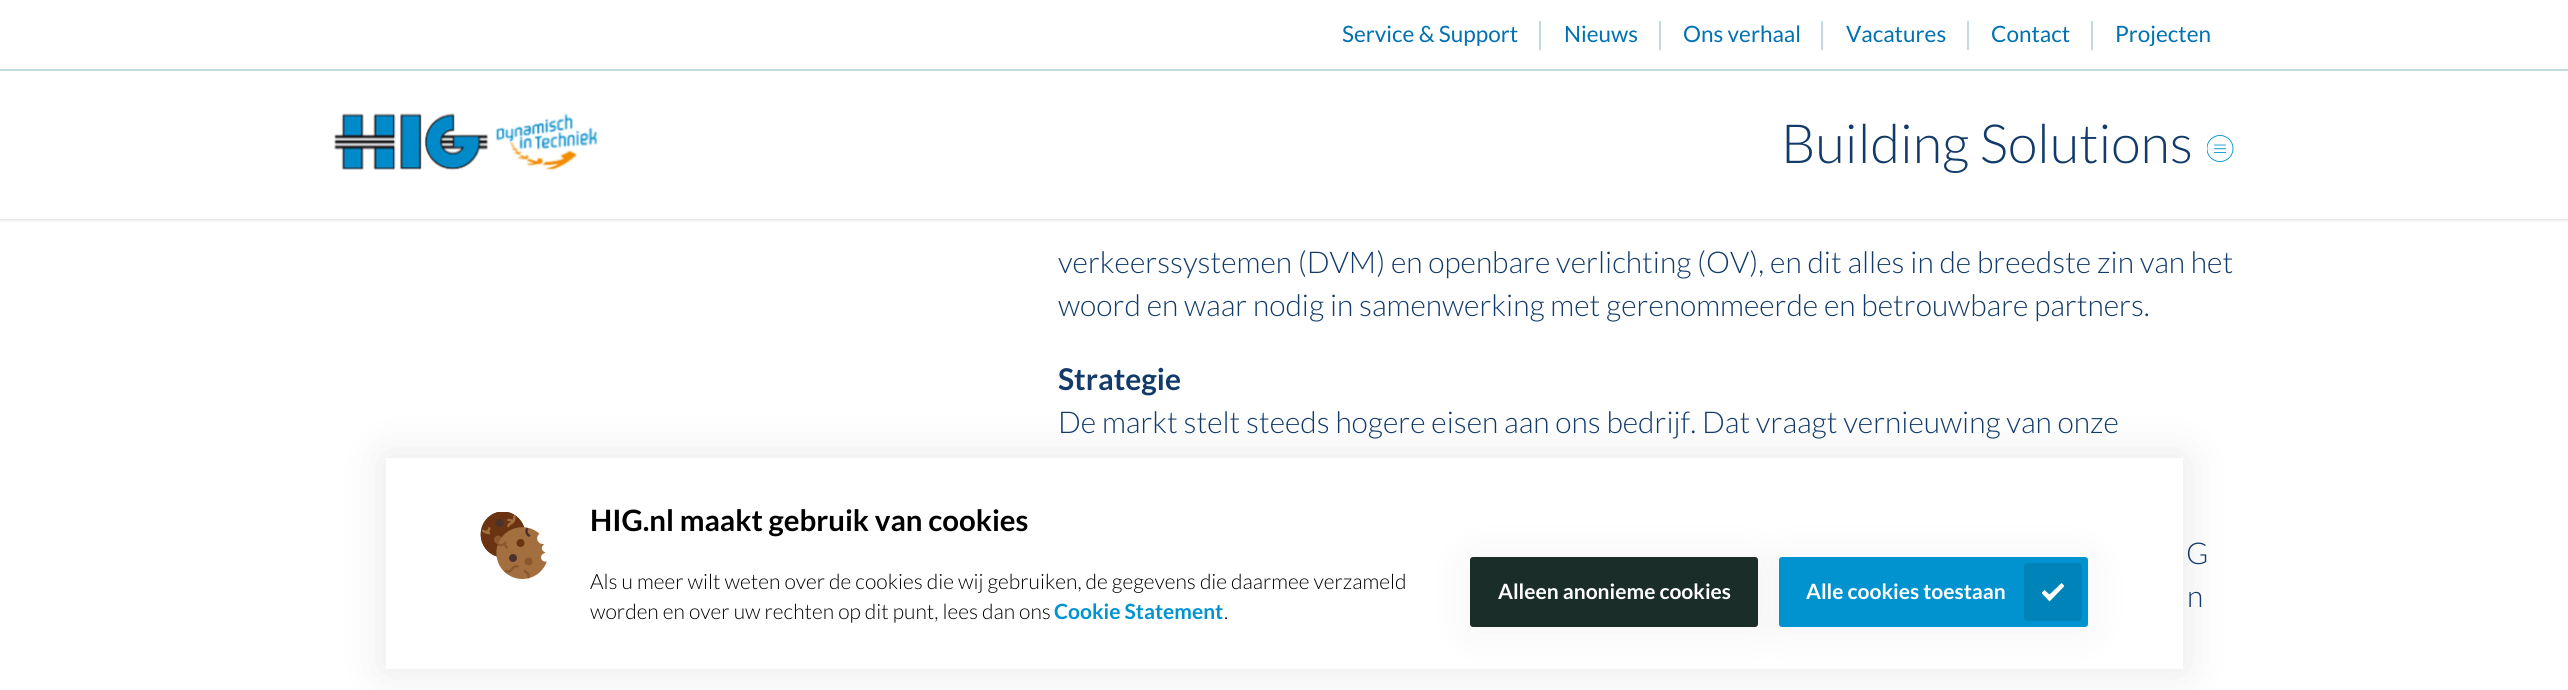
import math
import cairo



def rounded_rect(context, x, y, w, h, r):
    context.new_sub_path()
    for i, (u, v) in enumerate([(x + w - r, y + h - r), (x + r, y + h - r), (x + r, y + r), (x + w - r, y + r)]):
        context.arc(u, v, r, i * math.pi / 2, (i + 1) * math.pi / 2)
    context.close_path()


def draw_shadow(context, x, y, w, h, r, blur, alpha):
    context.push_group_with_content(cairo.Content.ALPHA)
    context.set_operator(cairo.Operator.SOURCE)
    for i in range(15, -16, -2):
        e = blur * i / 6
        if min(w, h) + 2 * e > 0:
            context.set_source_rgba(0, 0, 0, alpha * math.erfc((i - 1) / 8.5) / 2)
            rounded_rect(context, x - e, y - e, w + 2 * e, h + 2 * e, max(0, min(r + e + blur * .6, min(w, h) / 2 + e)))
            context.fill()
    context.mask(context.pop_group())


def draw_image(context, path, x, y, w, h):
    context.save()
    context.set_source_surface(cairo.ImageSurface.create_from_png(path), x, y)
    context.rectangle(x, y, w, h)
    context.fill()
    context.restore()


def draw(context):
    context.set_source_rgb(1, 1, 1)
    context.paint()
    context.set_source_rgb(150 / 255, 150 / 255, 150 / 255)
    draw_shadow(context, 0, 0, 2568, 219, 0, 2, 0.55)
    context.set_source_rgb(1, 1, 1)
    context.rectangle(0, 0, 2568, 69)
    context.fill()
    context.set_source_rgb(196 / 255, 216 / 255, 225 / 255)
    context.rectangle(0, 69, 2568, 2)
    context.fill()
    context.rectangle(1539, 21, 2, 29)
    context.fill()
    context.rectangle(1659, 21, 2, 29)
    context.fill()
    context.rectangle(1821, 21, 2, 29)
    context.fill()
    context.rectangle(1967, 21, 2, 29)
    context.fill()
    context.rectangle(2091, 21, 2, 29)
    context.fill()
    context.set_source_rgb(1, 1, 1)
    context.rectangle(0, 71, 2568, 148)
    context.fill()
    draw_image(context, "images/1.png", 334, 113, 263, 57)
    draw_image(context, "images/2.png", 2207, 135, 27, 27)
    context.set_source_rgb(0, 0, 0)
    draw_shadow(context, 386, 458, 1797, 211, 0, 22.5, 0.1)
    context.set_source_rgb(1, 1, 1)
    context.rectangle(386, 458, 1797, 211)
    context.fill()
    draw_image(context, "images/3.png", 480, 512, 67, 67)
    context.set_source_rgb(0, 0, 0)
    draw_shadow(context, 1470, 560, 288, 70, 3, 22.5, 0.05)
    context.set_source_rgb(26 / 255, 45 / 255, 40 / 255)
    rounded_rect(context, 1470, 557, 288, 70, 3)
    context.fill()
    context.set_source_rgb(0, 0, 0)
    draw_shadow(context, 1779, 560, 309, 70, 3, 22.5, 0.05)
    context.set_source_rgb(0, 147 / 255, 208 / 255)
    rounded_rect(context, 1779, 557, 309, 70, 3)
    context.fill()
    context.set_source_rgb(0, 131 / 255, 185 / 255)
    rounded_rect(context, 2024, 563, 58, 58, 3)
    context.fill()
    context.save()
    context.rectangle(2042, 581, 22, 22)
    context.clip()
    context.set_source_rgb(1, 1, 1)
    context.new_path()
    context.move_to(2061.5, 583)
    context.line_to(2049.5, 594.5)
    context.line_to(2044.5, 590)
    context.line_to(2041.5, 593)
    context.line_to(2049.5, 601.5)
    context.line_to(2064.5, 586)
    context.close_path()
    context.fill()
    context.restore()
    context.select_font_face("Lato")
    context.set_font_size(22.5)
    context.set_source_rgb(0, 113 / 255, 178 / 255)
    context.move_to(1342, 42)
    context.show_text("Service & Support")
    context.move_to(1564, 42)
    context.show_text("Nieuws")
    context.move_to(1683, 42)
    context.show_text("Ons verhaal")
    context.move_to(1846, 42)
    context.show_text("Vacatures")
    context.move_to(1991, 42)
    context.show_text("Contact")
    context.move_to(2115, 42)
    context.show_text("Projecten")
    context.select_font_face("Lato Light")
    context.set_font_size(54)
    context.set_source_rgb(18 / 255, 59 / 255, 105 / 255)
    context.move_to(1781, 163)
    context.show_text("Building Solutions")
    context.set_font_size(30)
    context.move_to(1058, 273)
    context.show_text("verkeerssystemen (DVM) en openbare verlichting (OV), en dit alles in de breedste zin van het")
    context.move_to(1058, 316)
    context.show_text("woord en waar nodig in samenwerking met gerenommeerde en betrouwbare partners.")
    context.select_font_face("Lato", cairo.FontSlant.NORMAL, cairo.FontWeight.BOLD)
    context.move_to(1058, 390)
    context.show_text("Strategie")
    context.select_font_face("Lato Light")
    context.move_to(1058, 433)
    context.show_text("De markt stelt steeds hogere eisen aan ons bedrijf. Dat vraagt vernieuwing van onze")
    context.move_to(2186, 564)
    context.show_text("G")
    context.move_to(2187, 607)
    context.show_text("n")
    context.select_font_face("Lato", cairo.FontSlant.NORMAL, cairo.FontWeight.BOLD)
    context.set_font_size(29.4)
    context.set_source_rgb(0, 0, 0)
    context.move_to(590, 531)
    context.show_text("HIG.nl maakt gebruik van cookies")
    context.select_font_face("Lato Light")
    context.set_font_size(21)
    context.move_to(590, 589)
    context.show_text("Als u meer wilt weten over de cookies die wij gebruiken, de gegevens die daarmee verzameld")
    context.move_to(590, 619)
    context.show_text("worden en over uw rechten op dit punt, lees dan ons")
    context.select_font_face("Lato", cairo.FontSlant.NORMAL, cairo.FontWeight.BOLD)
    context.set_source_rgb(0, 147 / 255, 208 / 255)
    context.move_to(1054, 619)
    context.show_text("Cookie Statement")
    context.select_font_face("Lato Light")
    context.set_source_rgb(0, 0, 0)
    context.move_to(1224, 619)
    context.show_text(".")
    context.select_font_face("Lato", cairo.FontSlant.NORMAL, cairo.FontWeight.BOLD)
    context.set_source_rgb(1, 1, 1)
    context.move_to(1498, 599)
    context.show_text("Alleen anonieme cookies")
    context.move_to(1806, 599)
    context.show_text("Alle cookies toestaan")


surface = cairo.ImageSurface(cairo.Format.RGB24, 2568, 690)
context = cairo.Context(surface)
options = cairo.FontOptions()
options.set_hint_metrics(cairo.HintMetrics.OFF)
options.set_hint_style(cairo.HintStyle.NONE)
context.set_font_options(options)
context.set_miter_limit(4)
draw(context)
surface.write_to_png("out.png")
